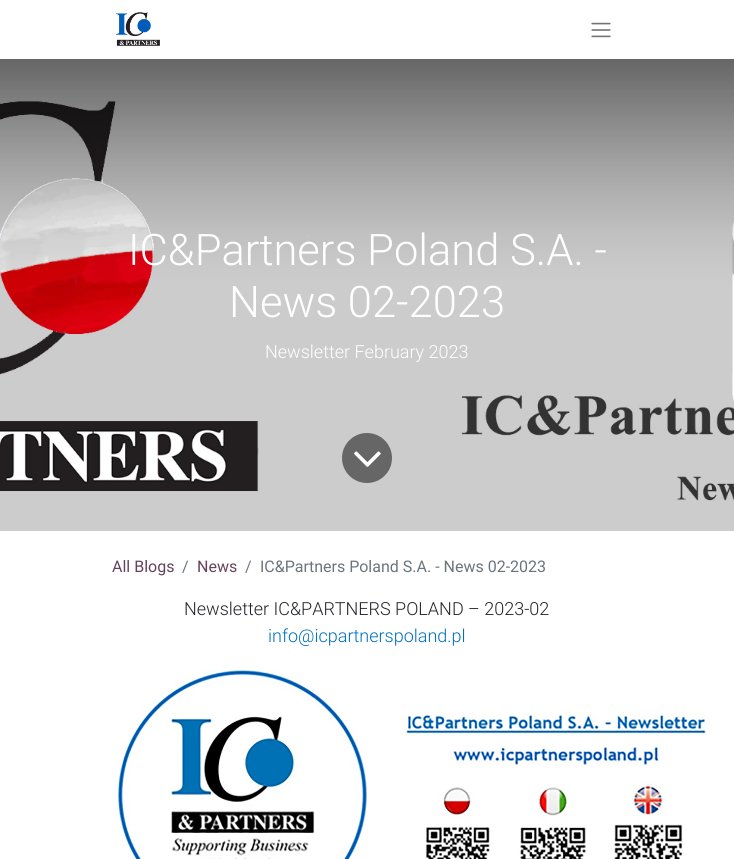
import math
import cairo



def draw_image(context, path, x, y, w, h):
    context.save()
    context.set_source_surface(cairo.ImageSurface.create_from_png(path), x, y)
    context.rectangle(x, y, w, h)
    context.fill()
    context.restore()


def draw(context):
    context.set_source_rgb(1, 1, 1)
    context.paint()
    draw_image(context, "images/1.png", 116, 12, 44, 34)
    draw_image(context, "images/2.png", 591, 22, 20, 16)
    draw_image(context, "images/3.png", 0, 59, 734, 472)
    context.set_source_rgb(102 / 255, 102 / 255, 102 / 255)
    context.arc(367, 458, 25, 0, 2 * math.pi)
    context.fill()
    draw_image(context, "images/4.png", 354, 451, 27, 16)
    draw_image(context, "images/5.png", 116, 670, 591, 189)
    context.select_font_face("Roboto Light")
    context.set_font_size(43.5)
    context.set_source_rgb(1, 1, 1)
    context.move_to(128, 265)
    context.show_text("IC&Partners Poland S.A. -")
    context.move_to(229, 317)
    context.show_text("News 02-2023")
    context.set_font_size(18)
    context.move_to(265, 358)
    context.show_text("Newsletter February 2023")
    context.select_font_face("Roboto")
    context.set_font_size(16)
    context.set_source_rgb(101 / 255, 67 / 255, 92 / 255)
    context.move_to(112, 572)
    context.show_text("All Blogs")
    context.set_source_rgb(108 / 255, 117 / 255, 125 / 255)
    context.move_to(182, 572)
    context.show_text("/")
    context.set_source_rgb(101 / 255, 67 / 255, 92 / 255)
    context.move_to(197, 572)
    context.show_text("News")
    context.set_source_rgb(108 / 255, 117 / 255, 125 / 255)
    context.move_to(245, 572)
    context.show_text("/")
    context.move_to(260, 572)
    context.show_text("IC&Partners Poland S.A. - News 02-2023")
    context.select_font_face("Roboto Light")
    context.set_font_size(18)
    context.set_source_rgb(33 / 255, 37 / 255, 41 / 255)
    context.move_to(184, 615)
    context.show_text("Newsletter IC&PARTNERS POLAND – 2023-02")
    context.set_source_rgb(0, 112 / 255, 192 / 255)
    context.move_to(268, 642)
    context.show_text("info@icpartnerspoland.pl")


surface = cairo.ImageSurface(cairo.Format.RGB24, 734, 859)
context = cairo.Context(surface)
options = cairo.FontOptions()
options.set_hint_metrics(cairo.HintMetrics.OFF)
options.set_hint_style(cairo.HintStyle.NONE)
context.set_font_options(options)
context.set_miter_limit(4)
draw(context)
surface.write_to_png("out.png")
